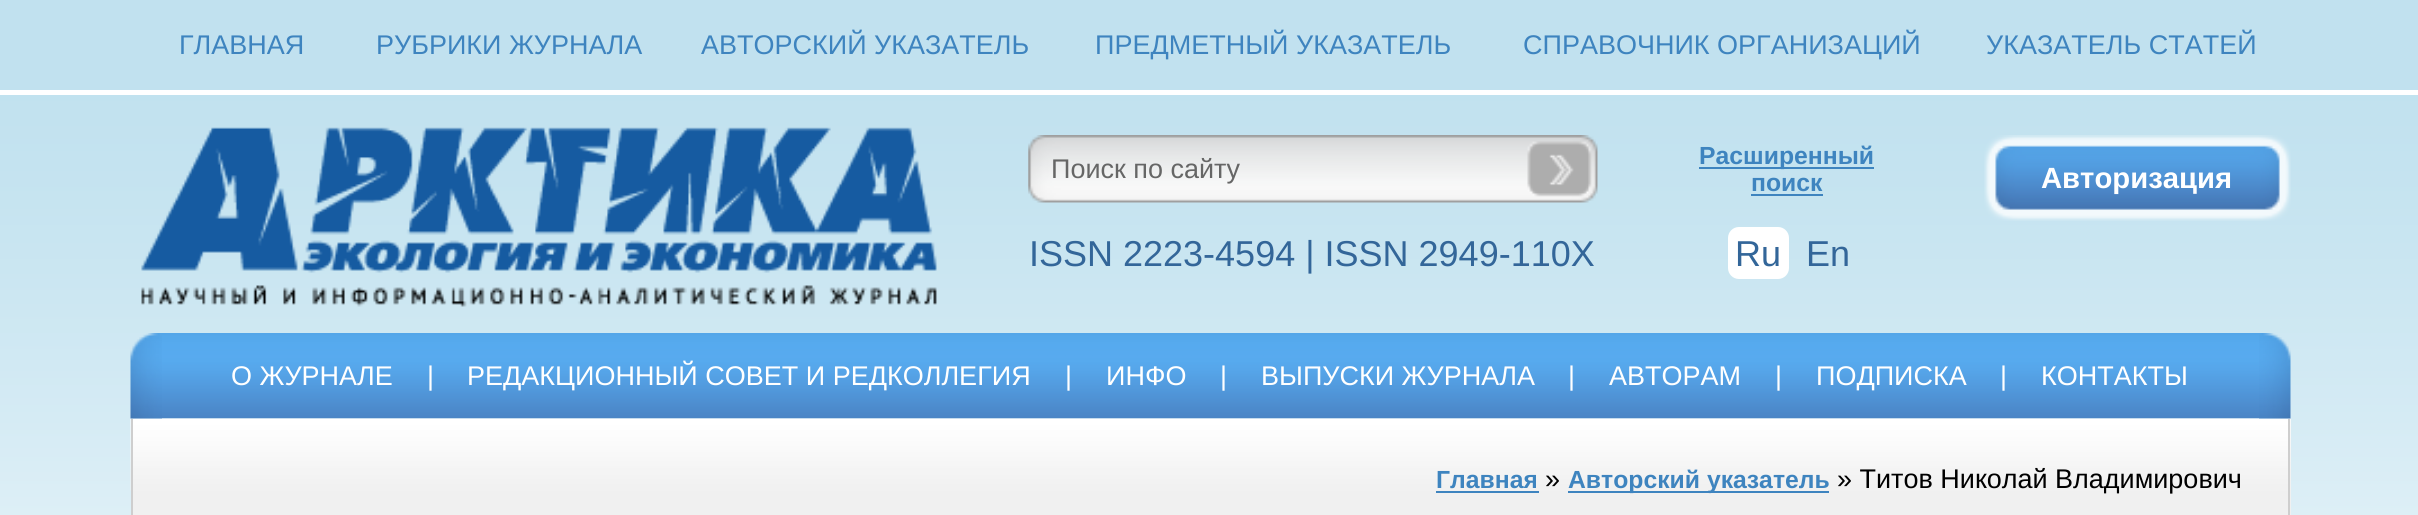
import math
import cairo



def rounded_rect(context, x, y, w, h, r):
    context.new_sub_path()
    for i, (u, v) in enumerate([(x + w - r, y + h - r), (x + r, y + h - r), (x + r, y + r), (x + w - r, y + r)]):
        context.arc(u, v, r, i * math.pi / 2, (i + 1) * math.pi / 2)
    context.close_path()


def draw_image(context, path, x, y, w, h):
    context.save()
    context.set_source_surface(cairo.ImageSurface.create_from_png(path), x, y)
    context.rectangle(x, y, w, h)
    context.fill()
    context.restore()


def draw(context):
    context.set_source_rgb(1, 1, 1)
    context.paint()
    draw_image(context, "images/1.png", 0, 0, 2418, 515)
    context.set_source_rgb(1, 1, 1)
    context.rectangle(0, 90, 2418, 5)
    context.fill()
    draw_image(context, "images/2.png", 141, 127, 796, 180)
    draw_image(context, "images/3.png", 1028, 135, 570, 68)
    context.set_source_rgb(62 / 255, 132 / 255, 191 / 255)
    context.rectangle(1699, 167, 175, 2)
    context.fill()
    context.rectangle(1751, 194, 72, 2)
    context.fill()
    context.set_source_rgb(1, 1, 1)
    rounded_rect(context, 1728, 227, 61, 52, 11)
    context.fill()
    draw_image(context, "images/4.png", 1984, 135, 307, 86)
    draw_image(context, "images/6.png", 162, 333, 2097, 86)
    context.set_source_rgb(240 / 255, 240 / 255, 240 / 255)
    context.rectangle(133, 419, 2158, 96)
    context.fill()
    draw_image(context, "images/8.png", 130, 418, 2161, 73)
    draw_image(context, "images/5.png", 130, 333, 32, 86)
    draw_image(context, "images/7.png", 2259, 333, 32, 86)
    context.set_source_rgb(206 / 255, 206 / 255, 206 / 255)
    context.rectangle(2288, 419, 2, 96)
    context.fill()
    context.rectangle(131, 419, 2, 96)
    context.fill()
    context.set_source_rgb(62 / 255, 132 / 255, 191 / 255)
    context.rectangle(1436, 491, 103, 2)
    context.fill()
    context.rectangle(1568, 491, 261, 2)
    context.fill()
    context.select_font_face("Liberation Sans")
    context.set_font_size(27)
    context.move_to(179, 54)
    context.show_text("ГЛАВНАЯ")
    context.move_to(376, 54)
    context.show_text("РУБРИКИ ЖУРНАЛА")
    context.move_to(701, 54)
    context.show_text("АВТОРСКИЙ УКАЗАТЕЛЬ")
    context.move_to(1095, 54)
    context.show_text("ПРЕДМЕТНЫЙ УКАЗАТЕЛЬ")
    context.move_to(1523, 54)
    context.show_text("СПРАВОЧНИК ОРГАНИЗАЦИЙ")
    context.move_to(1986, 54)
    context.show_text("УКАЗАТЕЛЬ СТАТЕЙ")
    context.set_source_rgb(102 / 255, 102 / 255, 102 / 255)
    context.move_to(1051, 178)
    context.show_text("Поиск по сайту")
    context.set_font_size(36)
    context.set_source_rgb(51 / 255, 102 / 255, 153 / 255)
    context.move_to(1029, 266)
    context.show_text("ISSN 2223-4594 | ISSN 2949-110X")
    context.select_font_face("Liberation Sans", cairo.FontSlant.NORMAL, cairo.FontWeight.BOLD)
    context.set_font_size(24.75)
    context.set_source_rgb(62 / 255, 132 / 255, 191 / 255)
    context.move_to(1699, 164)
    context.show_text("Расширенный")
    context.move_to(1751, 191)
    context.show_text("поиск")
    context.select_font_face("Liberation Sans")
    context.set_font_size(36)
    context.set_source_rgb(51 / 255, 102 / 255, 153 / 255)
    context.move_to(1735, 266)
    context.show_text("Ru")
    context.move_to(1806, 266)
    context.show_text("En")
    context.select_font_face("Liberation Sans", cairo.FontSlant.NORMAL, cairo.FontWeight.BOLD)
    context.set_font_size(29.25)
    context.set_source_rgb(1, 1, 1)
    context.move_to(2041, 188)
    context.show_text("Авторизация")
    context.select_font_face("Liberation Sans")
    context.set_font_size(27)
    context.move_to(231, 385)
    context.show_text("О ЖУРНАЛЕ")
    context.move_to(427, 385)
    context.show_text("|")
    context.move_to(467, 385)
    context.show_text("РЕДАКЦИОННЫЙ СОВЕТ И РЕДКОЛЛЕГИЯ")
    context.move_to(1065, 385)
    context.show_text("|")
    context.move_to(1106, 385)
    context.show_text("ИНФО")
    context.move_to(1220, 385)
    context.show_text("|")
    context.move_to(1261, 385)
    context.show_text("ВЫПУСКИ ЖУРНАЛА")
    context.move_to(1568, 385)
    context.show_text("|")
    context.move_to(1609, 385)
    context.show_text("АВТОРАМ")
    context.move_to(1775, 385)
    context.show_text("|")
    context.move_to(1816, 385)
    context.show_text("ПОДПИСКА")
    context.move_to(2000, 385)
    context.show_text("|")
    context.move_to(2041, 385)
    context.show_text("КОНТАКТЫ")
    context.select_font_face("Liberation Sans", cairo.FontSlant.NORMAL, cairo.FontWeight.BOLD)
    context.set_font_size(24.75)
    context.set_source_rgb(62 / 255, 132 / 255, 191 / 255)
    context.move_to(1436, 488)
    context.show_text("Главная")
    context.select_font_face("Liberation Sans")
    context.set_font_size(27)
    context.set_source_rgb(0, 0, 0)
    context.move_to(1545, 488)
    context.show_text("»")
    context.select_font_face("Liberation Sans", cairo.FontSlant.NORMAL, cairo.FontWeight.BOLD)
    context.set_font_size(24.75)
    context.set_source_rgb(62 / 255, 132 / 255, 191 / 255)
    context.move_to(1568, 488)
    context.show_text("Авторский указатель")
    context.select_font_face("Liberation Sans")
    context.set_font_size(27)
    context.set_source_rgb(0, 0, 0)
    context.move_to(1837, 488)
    context.show_text("» Титов Николай Владимирович")


surface = cairo.ImageSurface(cairo.Format.RGB24, 2418, 515)
context = cairo.Context(surface)
options = cairo.FontOptions()
options.set_hint_metrics(cairo.HintMetrics.OFF)
options.set_hint_style(cairo.HintStyle.NONE)
context.set_font_options(options)
context.set_miter_limit(4)
draw(context)
surface.write_to_png("out.png")
